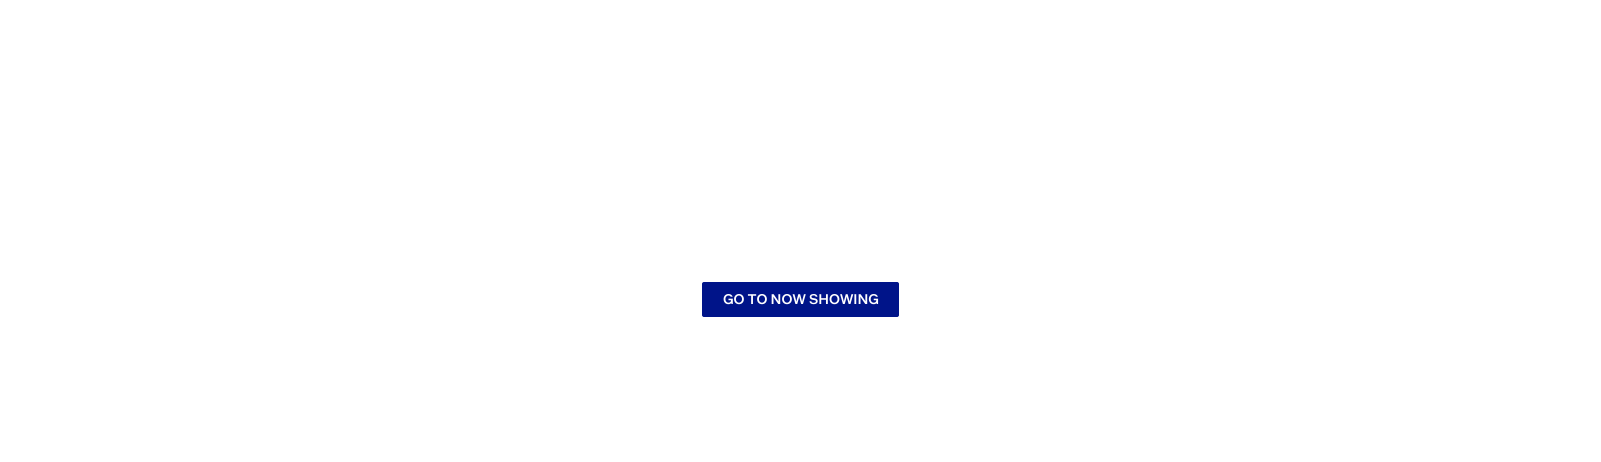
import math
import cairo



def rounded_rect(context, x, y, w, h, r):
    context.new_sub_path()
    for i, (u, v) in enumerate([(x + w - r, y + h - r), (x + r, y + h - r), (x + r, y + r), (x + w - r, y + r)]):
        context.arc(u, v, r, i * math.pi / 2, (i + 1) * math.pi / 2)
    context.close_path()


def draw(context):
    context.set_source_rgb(1, 1, 1)
    context.paint()
    context.set_source_rgb(0, 20 / 255, 137 / 255)
    rounded_rect(context, 702.5, 282.5, 196, 34, 1.5)
    context.fill_preserve()
    context.set_line_width(1)
    context.stroke()
    context.select_font_face("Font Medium")
    context.set_font_size(14)
    context.set_source_rgb(1, 1, 1)
    context.move_to(723, 304)
    context.show_text("GO TO NOW SHOWING")


surface = cairo.ImageSurface(cairo.Format.RGB24, 1601, 462)
context = cairo.Context(surface)
options = cairo.FontOptions()
options.set_hint_metrics(cairo.HintMetrics.OFF)
options.set_hint_style(cairo.HintStyle.NONE)
context.set_font_options(options)
context.set_miter_limit(4)
draw(context)
surface.write_to_png("out.png")
